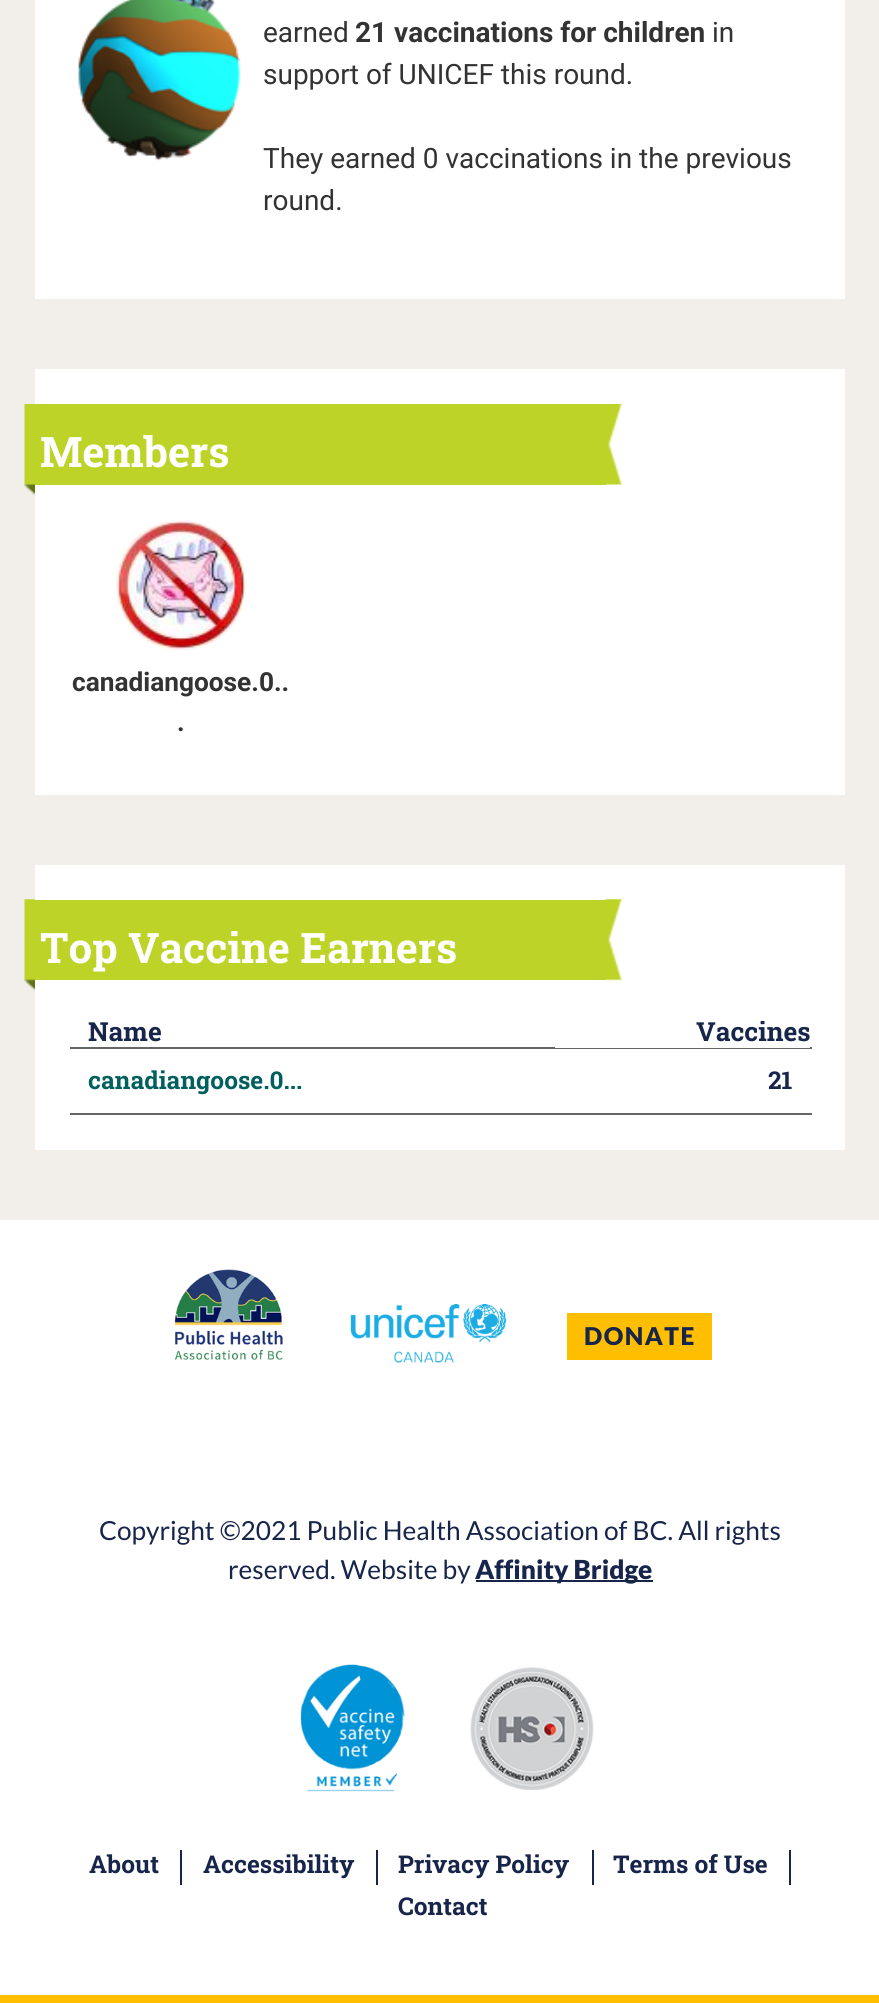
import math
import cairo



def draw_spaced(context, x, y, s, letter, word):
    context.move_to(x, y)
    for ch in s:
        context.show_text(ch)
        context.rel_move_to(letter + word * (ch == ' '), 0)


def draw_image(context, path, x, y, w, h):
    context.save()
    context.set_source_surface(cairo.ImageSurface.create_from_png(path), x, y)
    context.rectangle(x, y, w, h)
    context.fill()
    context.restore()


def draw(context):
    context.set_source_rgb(242 / 255, 239 / 255, 234 / 255)
    context.paint()
    context.set_source_rgb(1, 1, 1)
    context.rectangle(35, 0, 810, 299)
    context.fill()
    draw_image(context, "images/1.png", 77, 0, 164, 161)
    context.rectangle(35, 369, 810, 426)
    context.fill()
    context.set_source_rgb(190 / 255, 211 / 255, 40 / 255)
    context.rectangle(35, 404, 571, 81)
    context.fill()
    draw_image(context, "images/2.png", 24, 404, 11, 92)
    draw_image(context, "images/3.png", 606, 404, 16, 81)
    draw_image(context, "images/4.png", 115, 520, 132, 131)
    context.set_source_rgb(1, 1, 1)
    context.rectangle(35, 865, 810, 285)
    context.fill()
    context.set_source_rgb(190 / 255, 211 / 255, 40 / 255)
    context.rectangle(35, 900, 571, 80)
    context.fill()
    draw_image(context, "images/5.png", 24, 899, 11, 92)
    draw_image(context, "images/6.png", 605, 899, 17, 82)
    context.set_source_rgb(102 / 255, 102 / 255, 102 / 255)
    context.rectangle(70, 1047, 742, 2)
    context.fill()
    context.set_source_rgb(1, 1, 1)
    context.rectangle(555, 1047, 255, 1)
    context.fill()
    context.set_source_rgb(102 / 255, 102 / 255, 102 / 255)
    context.rectangle(70, 1113, 742, 2)
    context.fill()
    context.set_source_rgb(1, 1, 1)
    context.rectangle(0, 1220, 879, 775)
    context.fill()
    context.set_source_rgb(1, 191 / 255, 0)
    context.rectangle(0, 1995, 879, 8)
    context.fill()
    draw_image(context, "images/7.png", 174, 1269, 109, 91)
    draw_image(context, "images/8.png", 350, 1304, 157, 59)
    context.rectangle(567, 1313, 145, 47)
    context.fill()
    context.set_source_rgb(24 / 255, 37 / 255, 75 / 255)
    context.rectangle(476, 1580, 177, 2)
    context.fill()
    draw_image(context, "images/9.png", 300, 1664, 105, 128)
    draw_image(context, "images/10.png", 470, 1667, 124, 123)
    context.rectangle(180, 1850, 2, 35)
    context.fill()
    context.rectangle(376, 1850, 2, 35)
    context.fill()
    context.rectangle(592, 1850, 2, 35)
    context.fill()
    context.rectangle(789, 1850, 2, 35)
    context.fill()
    context.select_font_face("Roboto")
    context.set_font_size(28)
    context.set_source_rgb(51 / 255, 51 / 255, 51 / 255)
    context.move_to(263, 42)
    context.show_text("earned")
    context.select_font_face("Roboto", cairo.FontSlant.NORMAL, cairo.FontWeight.BOLD)
    context.move_to(355, 42)
    context.show_text("21 vaccinations for children")
    context.select_font_face("Roboto")
    context.move_to(712, 42)
    context.show_text("in")
    context.move_to(263, 84)
    context.show_text("support of UNICEF this round.")
    context.move_to(263, 168)
    context.show_text("They earned 0 vaccinations in the previous")
    context.move_to(263, 210)
    context.show_text("round.")
    context.select_font_face("Roboto Slab", cairo.FontSlant.NORMAL, cairo.FontWeight.BOLD)
    context.set_font_size(42)
    context.set_source_rgb(1, 1, 1)
    context.move_to(40, 467)
    context.show_text("Members")
    context.select_font_face("Roboto", cairo.FontSlant.NORMAL, cairo.FontWeight.BOLD)
    context.set_font_size(26.25)
    context.set_source_rgb(51 / 255, 51 / 255, 51 / 255)
    context.move_to(72, 691)
    context.show_text("canadiangoose.0..")
    context.move_to(177, 731)
    context.show_text(".")
    context.select_font_face("Roboto Slab", cairo.FontSlant.NORMAL, cairo.FontWeight.BOLD)
    context.set_font_size(42)
    context.set_source_rgb(1, 1, 1)
    context.move_to(40, 963)
    context.show_text("Top Vaccine Earners")
    context.set_font_size(26.25)
    context.set_source_rgb(24 / 255, 37 / 255, 75 / 255)
    context.move_to(88, 1041)
    context.show_text("Name")
    context.move_to(696, 1041)
    context.show_text("Vaccines")
    context.set_font_size(24.5)
    context.set_source_rgb(1 / 255, 96 / 255, 94 / 255)
    context.move_to(88, 1089)
    context.show_text("canadiangoose.0...")
    context.set_source_rgb(24 / 255, 37 / 255, 75 / 255)
    context.move_to(768, 1089)
    context.show_text("21")
    context.select_font_face("Lato Black")
    draw_spaced(context, 584, 1345, "DONATE", 1.5, 0)
    context.select_font_face("Lato")
    context.set_font_size(26.25)
    context.move_to(99, 1540)
    context.show_text("Copyright ©2021 Public Health Association of BC. All rights")
    context.move_to(228, 1579)
    context.show_text("reserved. Website by")
    context.select_font_face("Lato Black")
    context.move_to(475, 1579)
    context.show_text("Affinity Bridge")
    context.select_font_face("Roboto Slab", cairo.FontSlant.NORMAL, cairo.FontWeight.BOLD)
    context.set_font_size(24.5)
    context.move_to(89, 1873)
    context.show_text("About")
    context.move_to(203, 1873)
    context.show_text("Accessibility")
    context.move_to(398, 1873)
    context.show_text("Privacy Policy")
    context.move_to(613, 1873)
    context.show_text("Terms of Use")
    context.move_to(398, 1915)
    context.show_text("Contact")


surface = cairo.ImageSurface(cairo.Format.RGB24, 879, 2003)
context = cairo.Context(surface)
options = cairo.FontOptions()
options.set_hint_metrics(cairo.HintMetrics.OFF)
options.set_hint_style(cairo.HintStyle.NONE)
context.set_font_options(options)
context.set_miter_limit(4)
draw(context)
surface.write_to_png("out.png")
